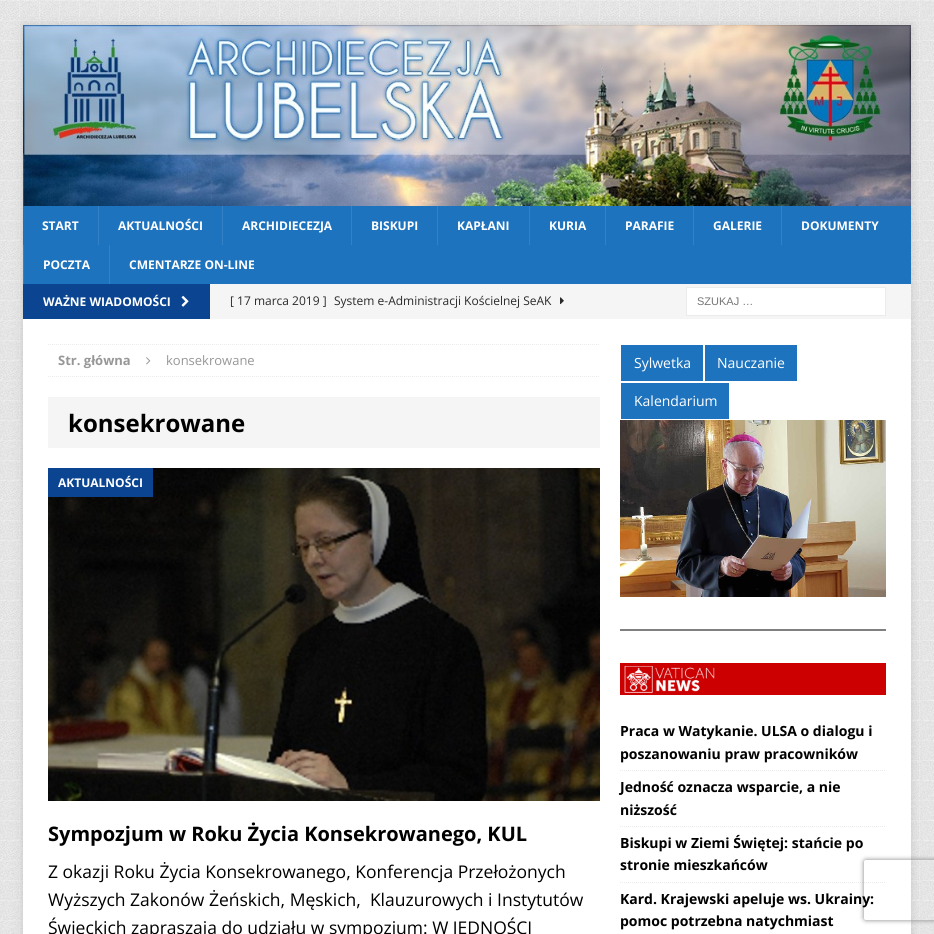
import math
import cairo



def rounded_rect(context, x, y, w, h, r):
    context.new_sub_path()
    for i, (u, v) in enumerate([(x + w - r, y + h - r), (x + r, y + h - r), (x + r, y + r), (x + w - r, y + r)]):
        context.arc(u, v, r, i * math.pi / 2, (i + 1) * math.pi / 2)
    context.close_path()


def draw_shadow(context, x, y, w, h, r, blur, alpha):
    context.push_group_with_content(cairo.Content.ALPHA)
    context.set_operator(cairo.Operator.SOURCE)
    for i in range(15, -16, -2):
        e = blur * i / 6
        if min(w, h) + 2 * e > 0:
            context.set_source_rgba(0, 0, 0, alpha * math.erfc((i - 1) / 8.5) / 2)
            rounded_rect(context, x - e, y - e, w + 2 * e, h + 2 * e, max(0, min(r + e + blur * .6, min(w, h) / 2 + e)))
            context.fill()
    context.mask(context.pop_group())


def draw_image(context, path, x, y, w, h):
    context.save()
    context.set_source_surface(cairo.ImageSurface.create_from_png(path), x, y)
    context.rectangle(x, y, w, h)
    context.fill()
    context.restore()


def draw(context):
    context.set_source_rgb(1, 1, 1)
    context.paint()
    draw_image(context, "images/1.png", 0, 0, 934, 934)
    context.set_source_rgb(50 / 255, 50 / 255, 50 / 255)
    draw_shadow(context, 23, 25, 888, 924, 0, 5, 0.17)
    draw_image(context, "images/2.png", 23, 25, 888, 181)
    context.set_source_rgb(30 / 255, 115 / 255, 190 / 255)
    context.rectangle(23, 206, 888, 78)
    context.fill()
    context.set_source_rgb(53 / 255, 129 / 255, 197 / 255)
    context.rectangle(98, 206, 1, 39)
    context.fill()
    context.rectangle(222, 206, 1, 39)
    context.fill()
    context.rectangle(351, 206, 1, 39)
    context.fill()
    context.rectangle(437, 206, 1, 39)
    context.fill()
    context.rectangle(529, 206, 1, 39)
    context.fill()
    context.rectangle(605, 206, 1, 39)
    context.fill()
    context.rectangle(693, 206, 1, 39)
    context.fill()
    context.rectangle(781, 206, 1, 39)
    context.fill()
    context.rectangle(23, 245, 1, 39)
    context.fill()
    context.rectangle(109, 245, 1, 39)
    context.fill()
    context.set_source_rgb(245 / 255, 245 / 255, 245 / 255)
    context.rectangle(210, 284, 701, 35)
    context.fill()
    context.set_source_rgb(11 / 255, 69 / 255, 145 / 255)
    context.rectangle(23, 284, 187, 35)
    context.fill()
    draw_image(context, "images/3.png", 181, 295, 8, 12)
    draw_image(context, "images/4.png", 560, 297, 4, 8)
    context.set_source_rgb(1, 1, 1)
    context.rectangle(686.5, 287.5, 199, 28)
    context.fill_preserve()
    context.set_source_rgb(235 / 255, 235 / 255, 235 / 255)
    context.set_line_width(1)
    context.stroke()
    context.set_source_rgb(1, 1, 1)
    context.rectangle(23, 319, 888, 615)
    context.fill()
    context.new_path()
    context.move_to(48, 344.5)
    context.line_to(600, 344.5)
    context.set_source_rgb(235 / 255, 235 / 255, 235 / 255)
    context.set_dash([1, 1])
    context.stroke()
    context.new_path()
    context.move_to(48, 376.5)
    context.line_to(600, 376.5)
    context.stroke()
    draw_image(context, "images/5.png", 146, 357, 5, 8)
    context.set_source_rgb(245 / 255, 245 / 255, 245 / 255)
    context.rectangle(48, 397, 552, 51)
    context.fill()
    draw_image(context, "images/6.png", 48, 468, 552, 333)
    context.set_source_rgb(11 / 255, 69 / 255, 145 / 255)
    context.rectangle(48, 468, 105, 29)
    context.fill()
    context.set_source_rgb(30 / 255, 115 / 255, 190 / 255)
    context.rectangle(621, 345, 82, 36)
    context.fill()
    context.rectangle(705, 345, 92, 36)
    context.fill()
    context.rectangle(621, 383, 108, 36)
    context.fill()
    draw_image(context, "images/7.png", 620, 420, 266, 177)
    context.set_source_rgb(128 / 255, 128 / 255, 128 / 255)
    context.rectangle(620, 629, 266, 2)
    context.fill()
    draw_image(context, "images/8.png", 620, 663, 266, 32)
    context.new_path()
    context.move_to(620, 770.5)
    context.line_to(886, 770.5)
    context.set_source_rgb(235 / 255, 235 / 255, 235 / 255)
    context.stroke()
    context.new_path()
    context.move_to(620, 826.5)
    context.line_to(886, 826.5)
    context.stroke()
    context.new_path()
    context.move_to(620, 882.5)
    context.line_to(886, 882.5)
    context.stroke()
    context.save()
    context.set_fill_rule(cairo.FillRule.EVEN_ODD)
    context.new_path()
    context.move_to(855, 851)
    context.line_to(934, 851)
    context.line_to(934, 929)
    context.line_to(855, 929)
    context.close_path()
    context.move_to(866, 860)
    context.line_to(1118, 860)
    context.curve_to(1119, 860, 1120, 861, 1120, 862)
    context.line_to(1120, 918)
    context.curve_to(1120, 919, 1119, 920, 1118, 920)
    context.line_to(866, 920)
    context.curve_to(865, 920, 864, 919, 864, 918)
    context.line_to(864, 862)
    context.curve_to(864, 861, 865, 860, 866, 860)
    context.close_path()
    context.clip()
    context.set_source_rgb(128 / 255, 128 / 255, 128 / 255)
    draw_shadow(context, 864, 860, 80, 60, 2, 2.5, 1)
    context.restore()
    context.select_font_face("Open Sans", cairo.FontSlant.NORMAL, cairo.FontWeight.BOLD)
    context.set_font_size(12)
    context.set_source_rgb(1, 1, 1)
    context.move_to(42, 230)
    context.show_text("START")
    context.move_to(118, 230)
    context.show_text("AKTUALNOŚCI")
    context.move_to(242, 230)
    context.show_text("ARCHIDIECEZJA")
    context.move_to(371, 230)
    context.show_text("BISKUPI")
    context.move_to(457, 230)
    context.show_text("KAPŁANI")
    context.move_to(549, 230)
    context.show_text("KURIA")
    context.move_to(625, 230)
    context.show_text("PARAFIE")
    context.move_to(713, 230)
    context.show_text("GALERIE")
    context.move_to(801, 230)
    context.show_text("DOKUMENTY")
    context.move_to(43, 269)
    context.show_text("POCZTA")
    context.move_to(129, 269)
    context.show_text("CMENTARZE ON-LINE")
    context.move_to(43, 306)
    context.show_text("WAŻNE WIADOMOŚCI")
    context.select_font_face("Open Sans")
    context.set_source_rgb(42 / 255, 42 / 255, 42 / 255)
    context.move_to(230, 305)
    context.show_text("[ 17 marca 2019 ]")
    context.move_to(334, 305)
    context.show_text("System e-Administracji Kościelnej SeAK")
    context.select_font_face("Liberation Sans")
    context.set_font_size(11)
    context.set_source_rgb(117 / 255, 117 / 255, 117 / 255)
    context.move_to(697, 305)
    context.show_text("SZUKAJ …")
    context.select_font_face("Open Sans", cairo.FontSlant.NORMAL, cairo.FontWeight.BOLD)
    context.set_font_size(13)
    context.set_source_rgb(151 / 255, 151 / 255, 151 / 255)
    context.move_to(58, 365)
    context.show_text("Str. główna")
    context.select_font_face("Open Sans")
    context.move_to(166, 365)
    context.show_text("konsekrowane")
    context.select_font_face("Open Sans", cairo.FontSlant.NORMAL, cairo.FontWeight.BOLD)
    context.set_font_size(24)
    context.set_source_rgb(0, 0, 0)
    context.move_to(68, 432)
    context.show_text("konsekrowane")
    context.set_font_size(12)
    context.set_source_rgb(1, 1, 1)
    context.move_to(58, 487)
    context.show_text("AKTUALNOŚCI")
    context.set_font_size(20)
    context.set_source_rgb(0, 0, 0)
    context.move_to(48, 841)
    context.show_text("Sympozjum w Roku Życia Konsekrowanego, KUL")
    context.select_font_face("Open Sans")
    context.set_font_size(17.5)
    context.move_to(48, 878)
    context.show_text("Z okazji Roku Życia Konsekrowanego, Konferencja Przełożonych")
    context.move_to(48, 906)
    context.show_text("Wyższych Zakonów Żeńskich, Męskich,  Klauzurowych i Instytutów")
    context.move_to(48, 934)
    context.show_text("Świeckich zapraszają do udziału w sympozjum: W JEDNOŚCI")
    context.set_font_size(14)
    context.set_source_rgb(1, 1, 1)
    context.move_to(634, 368)
    context.show_text("Sylwetka")
    context.move_to(717, 368)
    context.show_text("Nauczanie")
    context.move_to(634, 406)
    context.show_text("Kalendarium")
    context.select_font_face("Open Sans", cairo.FontSlant.NORMAL, cairo.FontWeight.BOLD)
    context.set_source_rgb(0, 0, 0)
    context.move_to(620, 736)
    context.show_text("Praca w Watykanie. ULSA o dialogu i")
    context.move_to(620, 759)
    context.show_text("poszanowaniu praw pracowników")
    context.move_to(620, 792)
    context.show_text("Jedność oznacza wsparcie, a nie")
    context.move_to(620, 815)
    context.show_text("niższość")
    context.move_to(620, 848)
    context.show_text("Biskupi w Ziemi Świętej: stańcie po")
    context.move_to(620, 870)
    context.show_text("stronie mieszkańców")
    context.move_to(620, 904)
    context.show_text("Kard. Krajewski apeluje ws. Ukrainy:")
    context.move_to(620, 926)
    context.show_text("pomoc potrzebna natychmiast")


surface = cairo.ImageSurface(cairo.Format.RGB24, 934, 934)
context = cairo.Context(surface)
options = cairo.FontOptions()
options.set_hint_metrics(cairo.HintMetrics.OFF)
options.set_hint_style(cairo.HintStyle.NONE)
context.set_font_options(options)
context.set_miter_limit(4)
draw(context)
surface.write_to_png("out.png")
